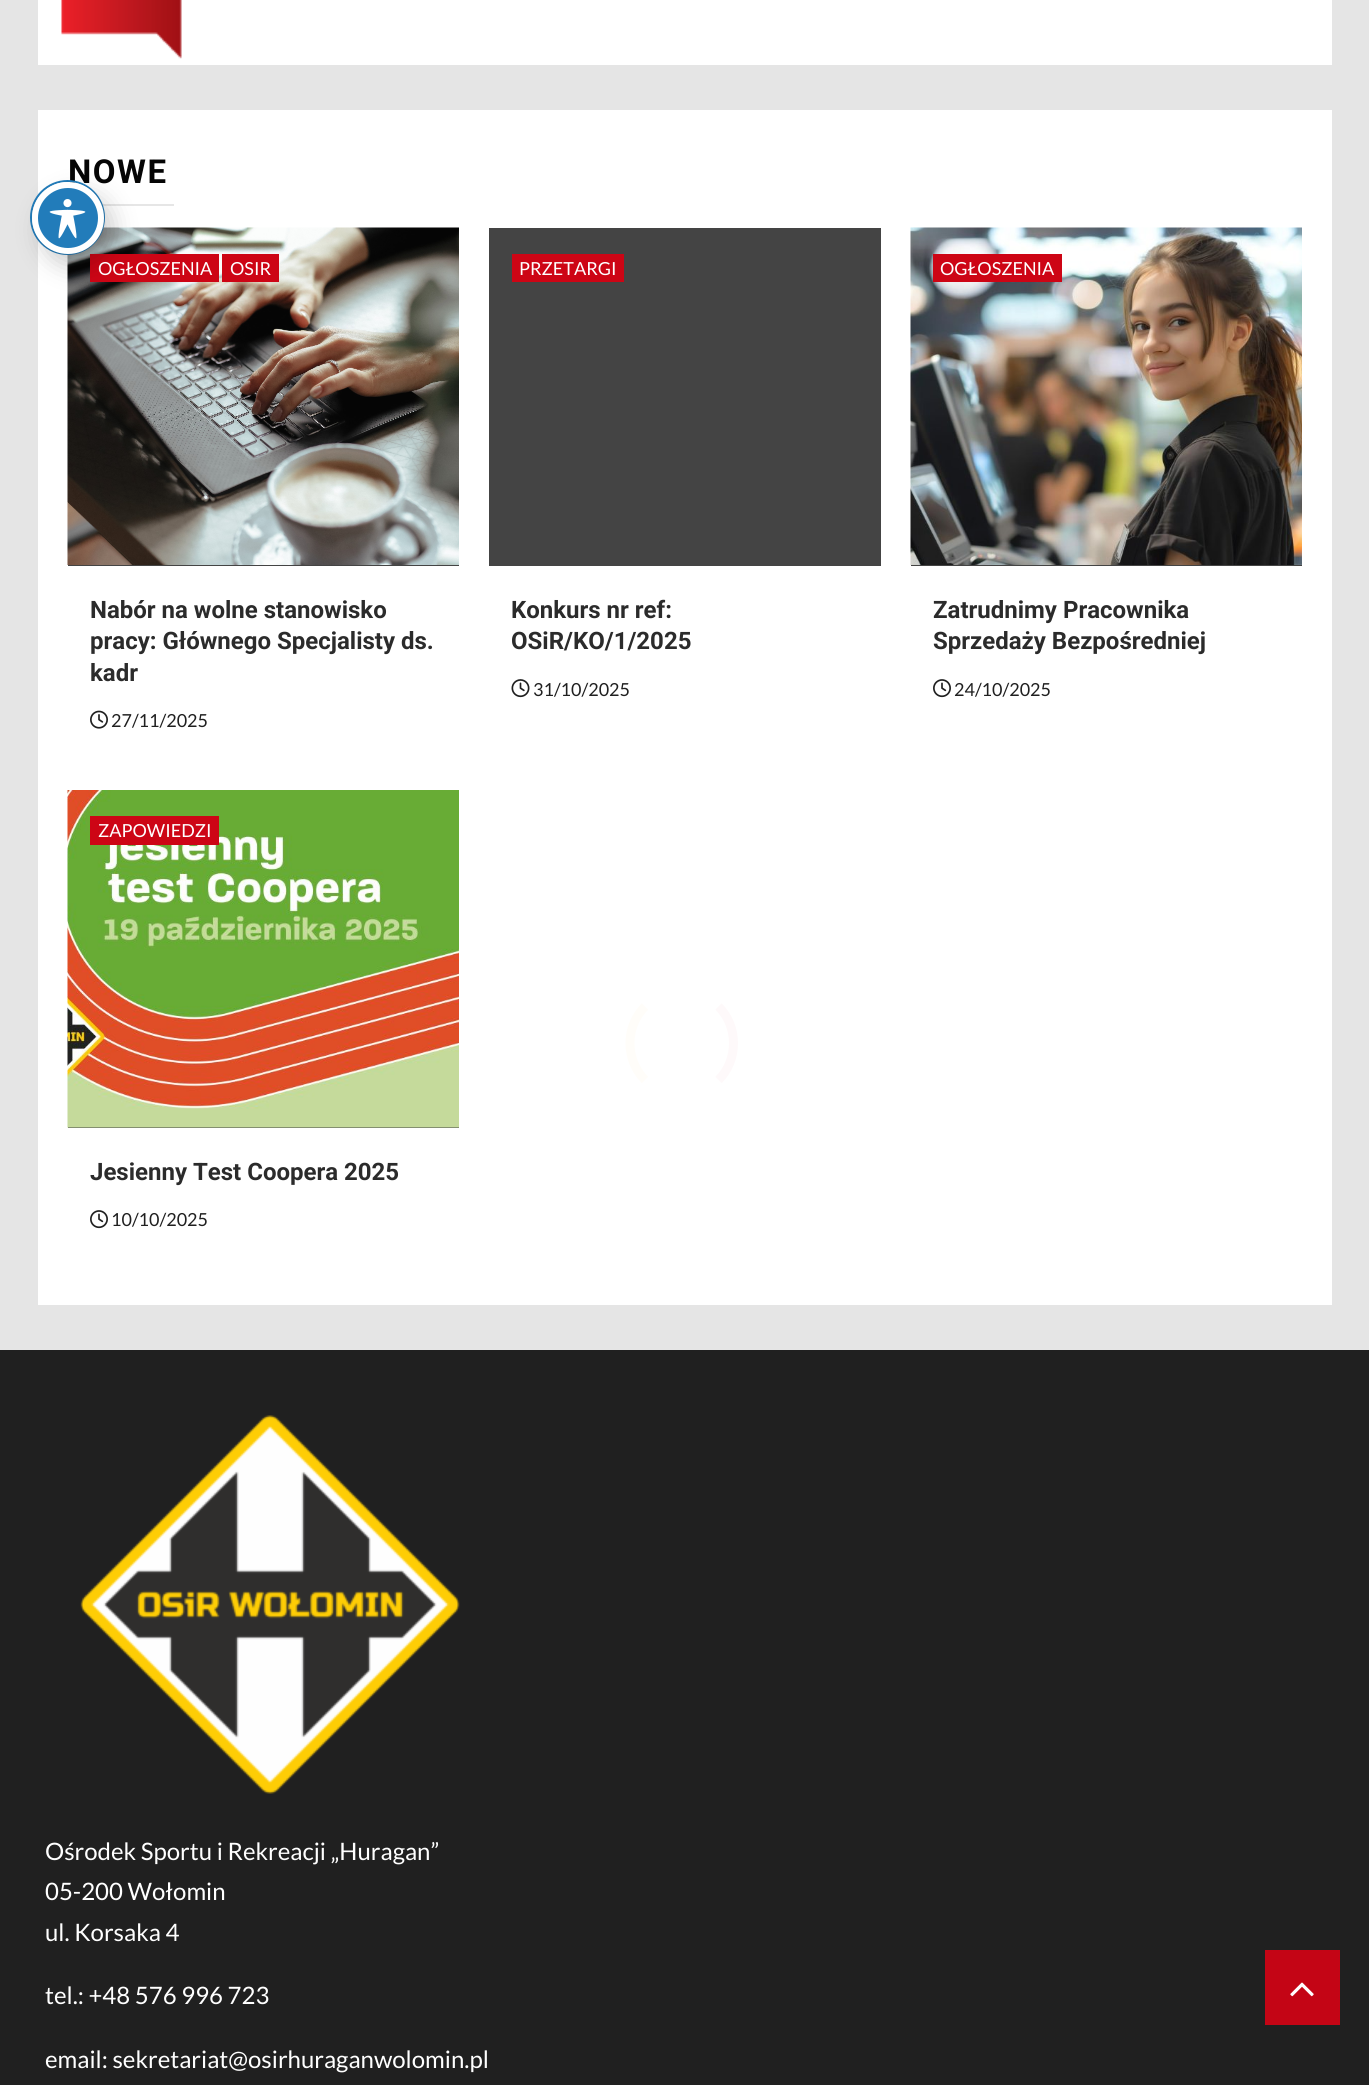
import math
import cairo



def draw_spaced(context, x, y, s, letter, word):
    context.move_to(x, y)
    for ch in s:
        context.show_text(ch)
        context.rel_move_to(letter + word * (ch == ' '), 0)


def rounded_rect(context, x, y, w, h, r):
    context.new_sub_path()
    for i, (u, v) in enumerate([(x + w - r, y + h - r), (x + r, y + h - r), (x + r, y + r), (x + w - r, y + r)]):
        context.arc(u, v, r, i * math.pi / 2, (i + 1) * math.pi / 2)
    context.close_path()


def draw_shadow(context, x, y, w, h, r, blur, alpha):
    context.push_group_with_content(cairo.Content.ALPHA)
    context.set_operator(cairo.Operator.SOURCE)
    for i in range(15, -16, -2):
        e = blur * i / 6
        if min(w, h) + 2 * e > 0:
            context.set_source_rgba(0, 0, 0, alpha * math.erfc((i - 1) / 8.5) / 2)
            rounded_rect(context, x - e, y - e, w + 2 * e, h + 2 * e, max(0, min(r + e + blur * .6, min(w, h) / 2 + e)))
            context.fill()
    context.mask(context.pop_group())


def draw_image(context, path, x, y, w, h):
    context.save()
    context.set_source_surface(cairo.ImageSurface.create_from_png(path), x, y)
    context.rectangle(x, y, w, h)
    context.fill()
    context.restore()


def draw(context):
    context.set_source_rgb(229 / 255, 229 / 255, 229 / 255)
    context.paint()
    context.set_source_rgb(1, 1, 1)
    context.rectangle(38, 0, 1294, 65)
    context.fill()
    draw_image(context, "images/2.png", 61, 0, 121, 59)
    context.rectangle(38, 110, 1294, 1195)
    context.fill()
    context.set_source_rgb(230 / 255, 230 / 255, 230 / 255)
    context.rectangle(102, 204, 72, 2)
    context.fill()
    context.set_source_rgb(68 / 255, 68 / 255, 68 / 255)
    context.rectangle(68, 565, 391, 1)
    context.fill()
    draw_image(context, "images/3.png", 67, 227, 392, 338)
    context.set_source_rgb(205 / 255, 5 / 255, 21 / 255)
    context.rectangle(90, 254, 129, 28)
    context.fill()
    context.rectangle(222, 254, 57, 28)
    context.fill()
    draw_image(context, "images/4.png", 90, 710, 18, 19)
    context.set_source_rgb(68 / 255, 68 / 255, 68 / 255)
    context.rectangle(489, 228, 392, 338)
    context.fill()
    context.set_source_rgb(205 / 255, 5 / 255, 21 / 255)
    context.rectangle(512, 254, 112, 28)
    context.fill()
    draw_image(context, "images/5.png", 511, 679, 19, 19)
    context.set_source_rgb(68 / 255, 68 / 255, 68 / 255)
    context.rectangle(911, 565, 391, 1)
    context.fill()
    draw_image(context, "images/6.png", 910, 227, 392, 338)
    context.set_source_rgb(205 / 255, 5 / 255, 21 / 255)
    context.rectangle(933, 254, 129, 28)
    context.fill()
    draw_image(context, "images/7.png", 933, 679, 18, 19)
    context.set_source_rgb(68 / 255, 68 / 255, 68 / 255)
    context.rectangle(68, 1127, 391, 1)
    context.fill()
    draw_image(context, "images/8.png", 67, 790, 392, 338)
    context.set_source_rgb(205 / 255, 5 / 255, 21 / 255)
    context.rectangle(90, 816, 129, 29)
    context.fill()
    draw_image(context, "images/7.png", 90, 1210, 18, 19)
    context.set_source_rgb(32 / 255, 32 / 255, 32 / 255)
    context.rectangle(0, 1350, 1369, 735)
    context.fill()
    draw_image(context, "images/9.png", 80, 1415, 380, 379)
    context.new_path()
    context.move_to(718.5, 1006.5)
    context.curve_to(738.5, 1026.5, 738.5, 1060, 718.5, 1080)
    context.set_source_rgb(254 / 255, 249 / 255, 250 / 255)
    context.set_line_width(9)
    context.stroke()
    context.new_path()
    context.move_to(645, 1080)
    context.curve_to(625, 1060, 625, 1026.5, 645, 1006.5)
    context.set_source_rgb(1, 253 / 255, 249 / 255)
    context.stroke()
    context.set_source_rgb(196 / 255, 5 / 255, 21 / 255)
    context.rectangle(1265, 1950, 75, 75)
    context.fill()
    draw_image(context, "images/10.png", 1290, 1982, 24, 15)
    context.select_font_face("Roboto", cairo.FontSlant.NORMAL, cairo.FontWeight.BOLD)
    context.set_font_size(33)
    context.set_source_rgb(5 / 255, 5 / 255, 5 / 255)
    draw_spaced(context, 68, 183, "NOWE", 1.5, 0)
    context.new_path()
    context.arc(67.5, 217.5, 36.5, 0, 2 * math.pi)
    context.set_source_rgb(34 / 255, 124 / 255, 186 / 255)
    context.set_line_width(2)
    context.stroke()
    context.set_source_rgb(5 / 255, 5 / 255, 5 / 255)
    draw_shadow(context, 41, 194, 72, 72, 36, 12, 0.2)
    context.set_source_rgb(34 / 255, 124 / 255, 186 / 255)
    context.arc(68, 218, 33, 0, 2 * math.pi)
    context.fill_preserve()
    context.set_source_rgb(1, 1, 1)
    context.set_line_width(6)
    context.stroke()
    draw_image(context, "images/1.png", 49, 199, 37, 40)
    context.select_font_face("Lato")
    context.set_font_size(18)
    context.move_to(98, 275)
    context.show_text("OGŁOSZENIA")
    context.move_to(230, 275)
    context.show_text("OSIR")
    context.select_font_face("Roboto", cairo.FontSlant.NORMAL, cairo.FontWeight.BOLD)
    context.set_font_size(24)
    context.set_source_rgb(43 / 255, 43 / 255, 43 / 255)
    context.move_to(90, 618)
    context.show_text("Nabór na wolne stanowisko")
    context.move_to(90, 649)
    context.show_text("pracy: Głównego Specjalisty ds.")
    context.move_to(90, 681)
    context.show_text("kadr")
    context.select_font_face("Lato")
    context.set_font_size(18)
    context.set_source_rgb(32 / 255, 32 / 255, 32 / 255)
    context.move_to(111, 727)
    context.show_text("27/11/2025")
    context.set_source_rgb(1, 1, 1)
    context.move_to(519, 275)
    context.show_text("PRZETARGI")
    context.select_font_face("Roboto", cairo.FontSlant.NORMAL, cairo.FontWeight.BOLD)
    context.set_font_size(24)
    context.set_source_rgb(43 / 255, 43 / 255, 43 / 255)
    context.move_to(511, 618)
    context.show_text("Konkurs nr ref:")
    context.move_to(511, 649)
    context.show_text("OSiR/KO/1/2025")
    context.select_font_face("Lato")
    context.set_font_size(18)
    context.set_source_rgb(32 / 255, 32 / 255, 32 / 255)
    context.move_to(533, 696)
    context.show_text("31/10/2025")
    context.set_source_rgb(1, 1, 1)
    context.move_to(940, 275)
    context.show_text("OGŁOSZENIA")
    context.select_font_face("Roboto", cairo.FontSlant.NORMAL, cairo.FontWeight.BOLD)
    context.set_font_size(24)
    context.set_source_rgb(43 / 255, 43 / 255, 43 / 255)
    context.move_to(933, 618)
    context.show_text("Zatrudnimy Pracownika")
    context.move_to(933, 649)
    context.show_text("Sprzedaży Bezpośredniej")
    context.select_font_face("Lato")
    context.set_font_size(18)
    context.set_source_rgb(32 / 255, 32 / 255, 32 / 255)
    context.move_to(954, 696)
    context.show_text("24/10/2025")
    context.set_source_rgb(1, 1, 1)
    context.move_to(98, 837)
    context.show_text("ZAPOWIEDZI")
    context.select_font_face("Roboto", cairo.FontSlant.NORMAL, cairo.FontWeight.BOLD)
    context.set_font_size(24)
    context.set_source_rgb(43 / 255, 43 / 255, 43 / 255)
    context.move_to(90, 1180)
    context.show_text("Jesienny Test Coopera 2025")
    context.select_font_face("Lato")
    context.set_font_size(18)
    context.set_source_rgb(32 / 255, 32 / 255, 32 / 255)
    context.move_to(111, 1226)
    context.show_text("10/10/2025")
    context.set_font_size(24)
    context.set_source_rgb(1, 1, 1)
    context.move_to(45, 1860)
    context.show_text("Ośrodek Sportu i Rekreacji „Huragan”")
    context.move_to(45, 1900)
    context.show_text("05-200 Wołomin")
    context.move_to(45, 1941)
    context.show_text("ul. Korsaka 4")
    context.move_to(45, 2004)
    context.show_text("tel.: +48 576 996 723")
    context.move_to(45, 2068)
    context.show_text("email: sekretariat@osirhuraganwolomin.pl")


surface = cairo.ImageSurface(cairo.Format.RGB24, 1369, 2085)
context = cairo.Context(surface)
options = cairo.FontOptions()
options.set_hint_metrics(cairo.HintMetrics.OFF)
options.set_hint_style(cairo.HintStyle.NONE)
context.set_font_options(options)
context.set_miter_limit(4)
draw(context)
surface.write_to_png("out.png")
